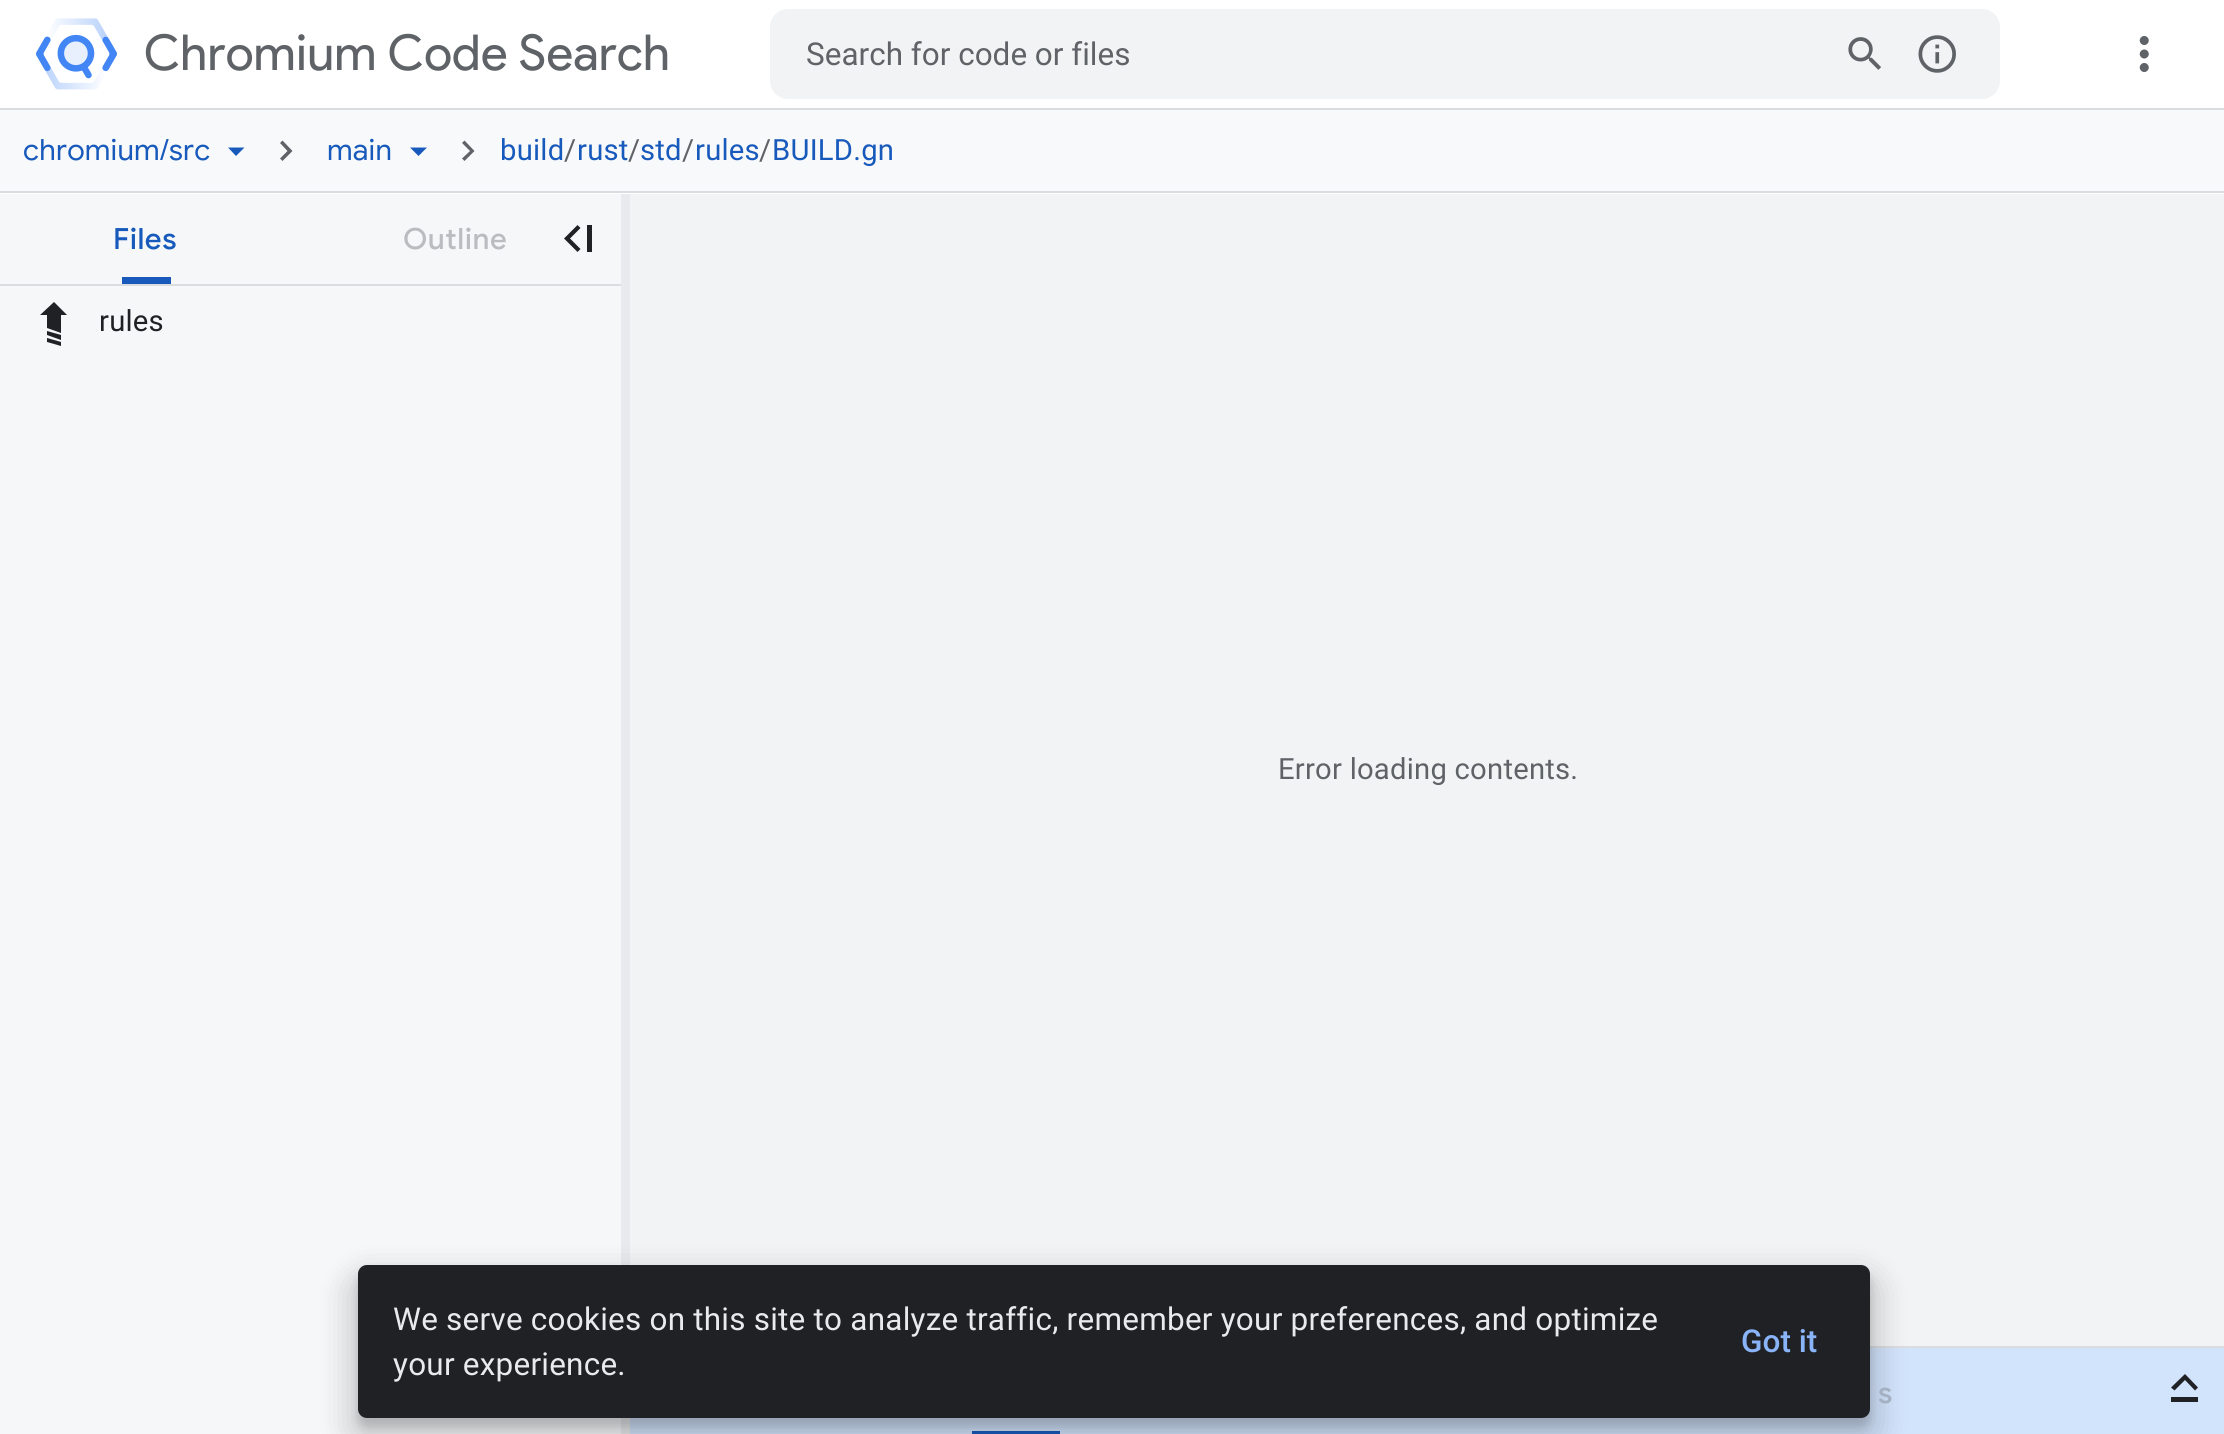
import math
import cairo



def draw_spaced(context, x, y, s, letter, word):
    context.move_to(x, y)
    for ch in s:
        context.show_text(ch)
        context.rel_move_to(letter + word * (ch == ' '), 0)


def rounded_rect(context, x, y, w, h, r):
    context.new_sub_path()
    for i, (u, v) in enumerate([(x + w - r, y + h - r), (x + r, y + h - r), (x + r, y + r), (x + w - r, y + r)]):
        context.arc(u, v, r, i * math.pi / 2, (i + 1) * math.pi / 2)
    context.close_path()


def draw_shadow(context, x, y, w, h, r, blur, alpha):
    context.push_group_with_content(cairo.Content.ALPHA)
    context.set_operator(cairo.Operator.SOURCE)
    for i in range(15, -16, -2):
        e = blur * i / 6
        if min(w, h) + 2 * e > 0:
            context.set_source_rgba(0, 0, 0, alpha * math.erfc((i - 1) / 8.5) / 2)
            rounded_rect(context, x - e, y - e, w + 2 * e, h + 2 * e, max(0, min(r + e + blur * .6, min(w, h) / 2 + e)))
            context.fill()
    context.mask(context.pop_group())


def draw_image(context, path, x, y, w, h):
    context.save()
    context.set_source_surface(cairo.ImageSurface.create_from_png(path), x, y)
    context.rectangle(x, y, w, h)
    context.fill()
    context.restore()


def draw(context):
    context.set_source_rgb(1, 1, 1)
    context.paint()
    context.set_source_rgb(218 / 255, 220 / 255, 224 / 255)
    context.rectangle(0, 108, 2224, 2)
    context.fill()
    draw_image(context, "images/1.png", 36, 18, 81, 72)
    context.set_source_rgb(241 / 255, 243 / 255, 244 / 255)
    rounded_rect(context, 770, 9, 1230, 90, 18)
    context.fill()
    draw_image(context, "images/2.png", 1848, 37, 33, 33)
    draw_image(context, "images/3.png", 1918, 35, 38, 38)
    draw_image(context, "images/4.png", 2139, 36, 10, 36)
    context.set_source_rgb(218 / 255, 220 / 255, 224 / 255)
    context.rectangle(0, 191, 2224, 2)
    context.fill()
    context.set_source_rgb(248 / 255, 249 / 255, 250 / 255)
    context.rectangle(0, 110, 2224, 81)
    context.fill()
    context.set_source_rgb(24 / 255, 90 / 255, 188 / 255)
    context.new_path()
    context.move_to(228, 147.5)
    context.line_to(236, 156)
    context.line_to(244.5, 147.5)
    context.close_path()
    context.fill()
    context.set_source_rgb(95 / 255, 99 / 255, 104 / 255)
    context.new_path()
    context.move_to(280, 158.5)
    context.line_to(287.5, 151)
    context.line_to(280, 143)
    context.line_to(282.5, 140.5)
    context.line_to(292.5, 151)
    context.line_to(282.5, 161)
    context.close_path()
    context.fill()
    context.set_source_rgb(24 / 255, 90 / 255, 188 / 255)
    context.new_path()
    context.move_to(410, 147.5)
    context.line_to(418.5, 156)
    context.line_to(427, 147.5)
    context.close_path()
    context.fill()
    context.set_source_rgb(95 / 255, 99 / 255, 104 / 255)
    context.new_path()
    context.move_to(462, 158.5)
    context.line_to(470, 151)
    context.line_to(462, 143)
    context.line_to(464.5, 140.5)
    context.line_to(474.5, 151)
    context.line_to(464.5, 161)
    context.close_path()
    context.fill()
    context.set_source_rgb(246 / 255, 247 / 255, 249 / 255)
    context.rectangle(0, 194, 621, 1240)
    context.fill()
    context.set_source_rgb(218 / 255, 220 / 255, 224 / 255)
    context.rectangle(0, 284, 621, 2)
    context.fill()
    context.set_source_rgb(24 / 255, 90 / 255, 188 / 255)
    context.rectangle(122, 277, 49, 7)
    context.fill()
    context.set_source_rgb(32 / 255, 33 / 255, 36 / 255)
    context.new_path()
    context.move_to(54, 302)
    context.line_to(40, 315)
    context.line_to(47, 315)
    context.line_to(47, 328)
    context.line_to(61, 333)
    context.line_to(61, 315)
    context.line_to(67, 315)
    context.close_path()
    context.move_to(47, 331)
    context.line_to(61, 335)
    context.line_to(61, 340)
    context.line_to(47, 335)
    context.close_path()
    context.move_to(47, 338)
    context.line_to(61, 342)
    context.line_to(61, 346)
    context.line_to(47, 342)
    context.close_path()
    context.fill()
    context.new_path()
    context.move_to(592, 252)
    context.line_to(587, 252)
    context.line_to(587, 225)
    context.line_to(592, 225)
    context.close_path()
    context.move_to(570, 238.5)
    context.line_to(580.5, 249)
    context.line_to(577.5, 252)
    context.line_to(564, 238.5)
    context.line_to(577.5, 225)
    context.line_to(580.5, 228)
    context.close_path()
    context.fill()
    context.set_source_rgb(232 / 255, 234 / 255, 237 / 255)
    context.rectangle(621, 194, 9, 1240)
    context.fill()
    context.set_source_rgb(241 / 255, 243 / 255, 244 / 255)
    context.rectangle(630, 194, 1594, 1152)
    context.fill()
    context.set_source_rgb(218 / 255, 220 / 255, 224 / 255)
    context.rectangle(1870, 1346, 354, 2)
    context.fill()
    context.set_source_rgb(210 / 255, 227 / 255, 252 / 255)
    context.rectangle(630, 1348, 1594, 86)
    context.fill()
    context.set_source_rgb(24 / 255, 90 / 255, 188 / 255)
    context.rectangle(972, 1431, 88, 3)
    context.fill()
    context.set_source_rgb(32 / 255, 33 / 255, 36 / 255)
    context.new_path()
    context.move_to(2171, 1402)
    context.line_to(2171, 1397)
    context.line_to(2198, 1397)
    context.line_to(2198, 1402)
    context.close_path()
    context.move_to(2185, 1380)
    context.line_to(2174.5, 1390.5)
    context.line_to(2171, 1387.5)
    context.line_to(2185, 1374)
    context.line_to(2198, 1387.5)
    context.line_to(2195, 1390.5)
    context.close_path()
    context.fill()
    context.set_source_rgb(0, 0, 0)
    draw_shadow(context, 344, 1269, 1539, 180, 23, 13.5, 0.15)
    draw_shadow(context, 358, 1274, 1512, 153, 9, 4.5, 0.15)
    context.set_source_rgb(32 / 255, 33 / 255, 36 / 255)
    rounded_rect(context, 358, 1265, 1512, 153, 9)
    context.fill()
    context.select_font_face("Product Sans")
    context.set_font_size(49.5)
    context.set_source_rgb(95 / 255, 99 / 255, 104 / 255)
    draw_spaced(context, 144, 70, "Chromium Code Search", 0.25, 0)
    context.select_font_face("Roboto")
    context.set_font_size(31.5)
    context.move_to(806, 65)
    context.show_text("Search for code or files")
    context.select_font_face("Google Sans")
    context.set_font_size(29.25)
    context.set_source_rgb(24 / 255, 90 / 255, 188 / 255)
    draw_spaced(context, 23, 160, "chromium/src", 0.23, 0)
    draw_spaced(context, 327, 160, "main", 0.23, 0)
    context.select_font_face("Roboto")
    draw_spaced(context, 500, 160, "build", 0.23, 0)
    context.set_source_rgb(95 / 255, 99 / 255, 104 / 255)
    draw_spaced(context, 564, 160, "/", 0.23, 0)
    context.set_source_rgb(24 / 255, 90 / 255, 188 / 255)
    draw_spaced(context, 577, 160, "rust", 0.23, 0)
    context.set_source_rgb(95 / 255, 99 / 255, 104 / 255)
    draw_spaced(context, 628, 160, "/", 0.23, 0)
    context.set_source_rgb(24 / 255, 90 / 255, 188 / 255)
    draw_spaced(context, 640, 160, "std", 0.23, 0)
    context.set_source_rgb(95 / 255, 99 / 255, 104 / 255)
    draw_spaced(context, 682, 160, "/", 0.23, 0)
    context.set_source_rgb(24 / 255, 90 / 255, 188 / 255)
    draw_spaced(context, 695, 160, "rules", 0.23, 0)
    context.set_source_rgb(95 / 255, 99 / 255, 104 / 255)
    draw_spaced(context, 759, 160, "/", 0.23, 0)
    context.set_source_rgb(24 / 255, 90 / 255, 188 / 255)
    draw_spaced(context, 772, 160, "BUILD.gn", 0.23, 0)
    context.select_font_face("Google Sans Medium")
    draw_spaced(context, 113, 249, "Files", 0.5, 0)
    context.set_source_rgb(186 / 255, 188 / 255, 191 / 255)
    draw_spaced(context, 403, 249, "Outline", 0.5, 0)
    context.select_font_face("Roboto")
    context.set_source_rgb(32 / 255, 33 / 255, 36 / 255)
    draw_spaced(context, 99, 331, "rules", 0.23, 0)
    context.set_source_rgb(95 / 255, 99 / 255, 104 / 255)
    draw_spaced(context, 1278, 779, "Error loading contents.", 0.23, 0)
    context.select_font_face("Google Sans Medium")
    context.set_source_rgb(164 / 255, 176 / 255, 193 / 255)
    draw_spaced(context, 1878, 1403, "s", 0.5, 0)
    context.select_font_face("Roboto")
    context.set_font_size(31.5)
    context.set_source_rgb(232 / 255, 234 / 255, 237 / 255)
    draw_spaced(context, 393, 1330, "We serve cookies on this site to analyze traffic, remember your preferences, and optimize", 0.23, 0)
    draw_spaced(context, 393, 1375, "your experience.", 0.23, 0)
    context.select_font_face("Roboto Medium")
    context.set_source_rgb(138 / 255, 180 / 255, 248 / 255)
    context.move_to(1741, 1352)
    context.show_text("Got it")


surface = cairo.ImageSurface(cairo.Format.RGB24, 2224, 1434)
context = cairo.Context(surface)
options = cairo.FontOptions()
options.set_hint_metrics(cairo.HintMetrics.OFF)
options.set_hint_style(cairo.HintStyle.NONE)
context.set_font_options(options)
context.set_miter_limit(4)
draw(context)
surface.write_to_png("out.png")
